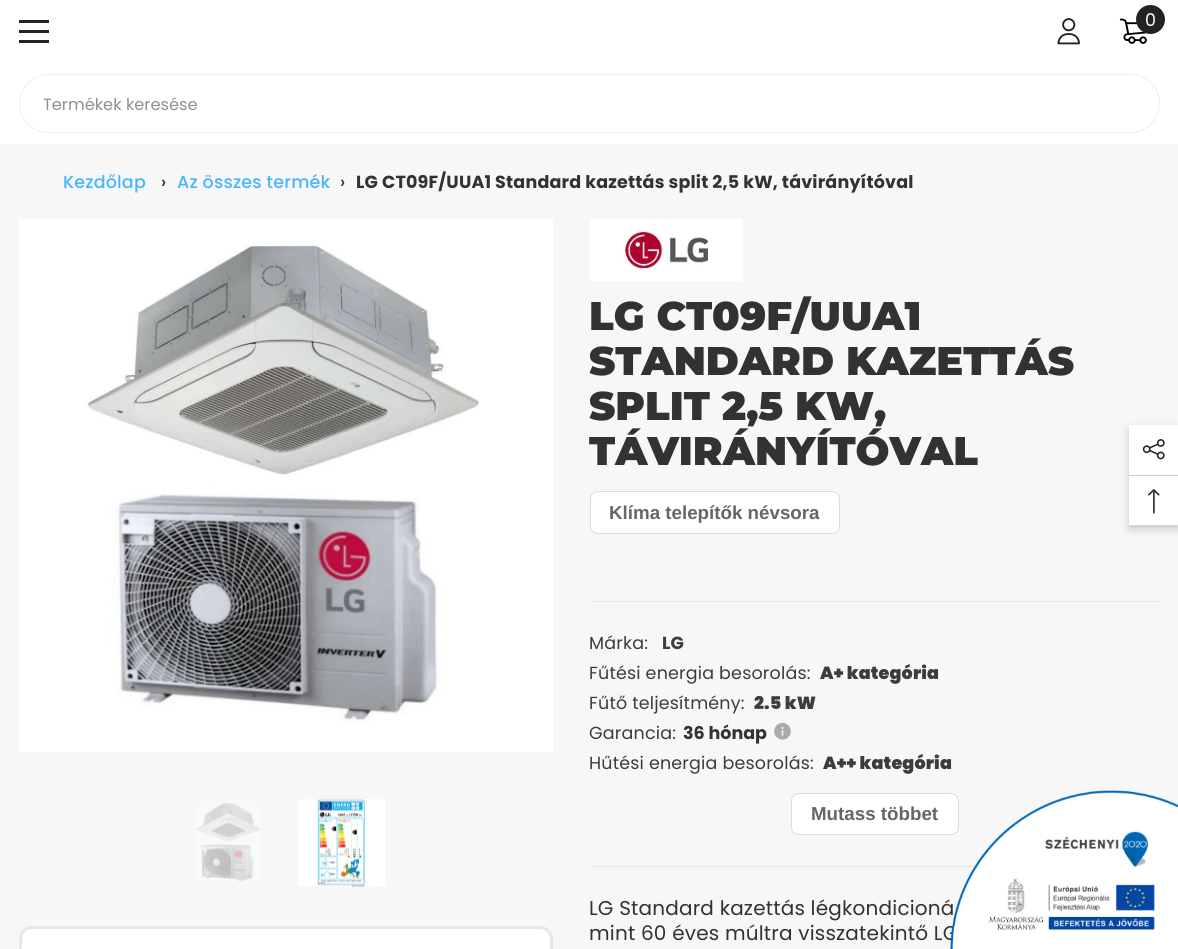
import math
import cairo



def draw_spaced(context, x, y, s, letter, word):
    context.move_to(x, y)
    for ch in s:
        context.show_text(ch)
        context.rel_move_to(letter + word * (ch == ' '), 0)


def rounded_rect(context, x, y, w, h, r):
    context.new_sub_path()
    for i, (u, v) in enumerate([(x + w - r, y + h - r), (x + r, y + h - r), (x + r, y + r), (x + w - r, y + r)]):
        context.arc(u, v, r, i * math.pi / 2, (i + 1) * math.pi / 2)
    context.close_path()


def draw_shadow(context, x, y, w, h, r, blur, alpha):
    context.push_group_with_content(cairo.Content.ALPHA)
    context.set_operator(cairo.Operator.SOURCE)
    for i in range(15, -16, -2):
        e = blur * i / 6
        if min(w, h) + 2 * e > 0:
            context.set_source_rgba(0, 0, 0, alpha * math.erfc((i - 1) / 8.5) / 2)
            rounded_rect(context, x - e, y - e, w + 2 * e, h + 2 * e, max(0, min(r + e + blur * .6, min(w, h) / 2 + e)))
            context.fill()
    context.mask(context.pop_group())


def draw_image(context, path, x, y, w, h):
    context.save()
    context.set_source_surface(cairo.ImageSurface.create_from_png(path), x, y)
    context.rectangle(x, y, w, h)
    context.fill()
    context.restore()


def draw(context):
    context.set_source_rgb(1, 1, 1)
    context.paint()
    context.set_source_rgb(35 / 255, 35 / 255, 35 / 255)
    context.rectangle(19, 30, 30, 3)
    context.fill()
    context.rectangle(19, 20, 30, 3)
    context.fill()
    context.rectangle(19, 40, 30, 3)
    context.fill()
    draw_image(context, "images/1.png", 1057, 18, 23, 27)
    draw_image(context, "images/2.png", 1119, 18, 28, 26)
    context.arc(1150.5, 19.5, 14.5, 0, 2 * math.pi)
    context.fill()
    rounded_rect(context, 19.5, 74.5, 1140, 58, 29)
    context.set_source_rgb(237 / 255, 237 / 255, 237 / 255)
    context.set_line_width(1)
    context.stroke()
    context.set_source_rgb(247 / 255, 247 / 255, 247 / 255)
    context.rectangle(0, 144, 1178, 805)
    context.fill()
    draw_image(context, "images/3.png", 19, 219, 534, 533)
    draw_image(context, "images/4.png", 197, 803, 63, 79)
    draw_image(context, "images/5.png", 298, 799, 87, 88)
    context.set_source_rgb(1, 1, 1)
    rounded_rect(context, 20.5, 927.5, 531, 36, 11.5)
    context.fill_preserve()
    context.set_source_rgb(231 / 255, 231 / 255, 231 / 255)
    context.set_line_width(3)
    context.stroke()
    draw_image(context, "images/6.png", 590, 219, 153, 62)
    context.set_source_rgb(1, 1, 1)
    rounded_rect(context, 590.5, 491.5, 249, 42, 7.5)
    context.fill_preserve()
    context.set_source_rgb(220 / 255, 220 / 255, 220 / 255)
    context.set_line_width(1)
    context.stroke()
    context.set_source_rgb(230 / 255, 230 / 255, 230 / 255)
    context.rectangle(590, 601, 570, 1)
    context.fill()
    draw_image(context, "images/7.png", 774, 722, 17, 18)
    context.set_source_rgb(1, 1, 1)
    rounded_rect(context, 791.5, 793.5, 167, 41, 7.5)
    context.fill_preserve()
    context.set_source_rgb(220 / 255, 220 / 255, 220 / 255)
    context.stroke()
    context.set_source_rgb(230 / 255, 230 / 255, 230 / 255)
    context.rectangle(590, 866, 386, 1)
    context.fill()
    context.set_source_rgb(0, 0, 0)
    draw_shadow(context, 1129, 429, 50, 100, 0, 4.5, 0.2)
    context.set_source_rgb(1, 1, 1)
    context.rectangle(1129, 425, 49, 100)
    context.fill()
    draw_image(context, "images/8.png", 1142, 439, 23, 21)
    context.set_source_rgb(204 / 255, 204 / 255, 204 / 255)
    context.rectangle(1129, 475, 49, 1)
    context.fill()
    draw_image(context, "images/9.png", 1148, 489, 12, 25)
    context.select_font_face("Poppins")
    context.set_font_size(17.5)
    context.set_source_rgb(1, 1, 1)
    context.move_to(1145, 26)
    context.show_text("0")
    context.set_font_size(16.25)
    context.set_source_rgb(144 / 255, 144 / 255, 144 / 255)
    context.move_to(43, 110)
    context.show_text("Termékek keresése")
    context.select_font_face("Poppins Medium")
    context.set_font_size(17.5)
    context.set_source_rgb(71 / 255, 181 / 255, 1)
    draw_spaced(context, 63, 188, "Kezdőlap", 0.18, 0)
    context.set_source_rgb(50 / 255, 50 / 255, 50 / 255)
    draw_spaced(context, 161, 188, "›", 0.18, 0)
    context.set_source_rgb(71 / 255, 181 / 255, 1)
    draw_spaced(context, 177, 188, "Az összes termék", 0.18, 0)
    context.set_source_rgb(50 / 255, 50 / 255, 50 / 255)
    draw_spaced(context, 340, 188, "›", 0.18, 0)
    context.select_font_face("Poppins", cairo.FontSlant.NORMAL, cairo.FontWeight.BOLD)
    draw_spaced(context, 356, 188, "LG CT09F/UUA1 Standard kazettás split 2,5 kW, távirányítóval", 0.18, 0)
    context.select_font_face("Montserrat Black")
    context.set_font_size(40)
    context.move_to(589, 330)
    context.show_text("LG CT09F/UUA1")
    context.move_to(589, 375)
    context.show_text("STANDARD KAZETTÁS")
    context.move_to(589, 420)
    context.show_text("SPLIT 2,5 KW,")
    context.move_to(589, 465)
    context.show_text("TÁVIRÁNYÍTÓVAL")
    context.select_font_face("Liberation Sans", cairo.FontSlant.NORMAL, cairo.FontWeight.BOLD)
    context.set_font_size(18.75)
    context.set_source_rgb(102 / 255, 102 / 255, 102 / 255)
    context.move_to(609, 519)
    context.show_text("Klíma telepítők névsora")
    context.select_font_face("Poppins")
    context.set_font_size(17.5)
    context.set_source_rgb(60 / 255, 60 / 255, 60 / 255)
    draw_spaced(context, 589, 649, "Márka:", 0.18, 0)
    context.select_font_face("Poppins", cairo.FontSlant.NORMAL, cairo.FontWeight.BOLD)
    draw_spaced(context, 662, 649, "LG", 0.18, 0)
    context.select_font_face("Poppins")
    draw_spaced(context, 589, 679, "Fűtési energia besorolás:", 0.18, 0)
    context.select_font_face("Poppins Black")
    draw_spaced(context, 820, 679, "A+ kategória", 0.18, 0)
    context.select_font_face("Poppins")
    draw_spaced(context, 589, 709, "Fűtő teljesítmény:", 0.18, 0)
    context.select_font_face("Poppins Black")
    draw_spaced(context, 754, 709, "2.5 kW", 0.18, 0)
    context.select_font_face("Poppins")
    draw_spaced(context, 589, 739, "Garancia:", 0.18, 0)
    context.select_font_face("Poppins", cairo.FontSlant.NORMAL, cairo.FontWeight.BOLD)
    context.set_source_rgb(50 / 255, 50 / 255, 50 / 255)
    context.move_to(683, 739)
    context.show_text("36 hónap")
    context.select_font_face("Poppins")
    context.set_source_rgb(60 / 255, 60 / 255, 60 / 255)
    draw_spaced(context, 589, 769, "Hűtési energia besorolás:", 0.18, 0)
    context.select_font_face("Poppins Black")
    draw_spaced(context, 823, 769, "A++ kategória", 0.18, 0)
    context.select_font_face("Liberation Sans", cairo.FontSlant.NORMAL, cairo.FontWeight.BOLD)
    context.set_font_size(18.75)
    context.set_source_rgb(102 / 255, 102 / 255, 102 / 255)
    context.move_to(811, 820)
    context.show_text("Mutass többet")
    context.select_font_face("Poppins")
    context.set_font_size(20)
    context.set_source_rgb(50 / 255, 50 / 255, 50 / 255)
    draw_spaced(context, 589, 915, "LG Standard kazettás légkondicioná", 0.2, 0)
    draw_spaced(context, 589, 940, "mint 60 éves múltra visszatekintő LG", 0.2, 0)
    draw_image(context, "images/10.png", 950, 790, 228, 159)


surface = cairo.ImageSurface(cairo.Format.RGB24, 1178, 949)
context = cairo.Context(surface)
options = cairo.FontOptions()
options.set_hint_metrics(cairo.HintMetrics.OFF)
options.set_hint_style(cairo.HintStyle.NONE)
context.set_font_options(options)
context.set_miter_limit(4)
draw(context)
surface.write_to_png("out.png")
